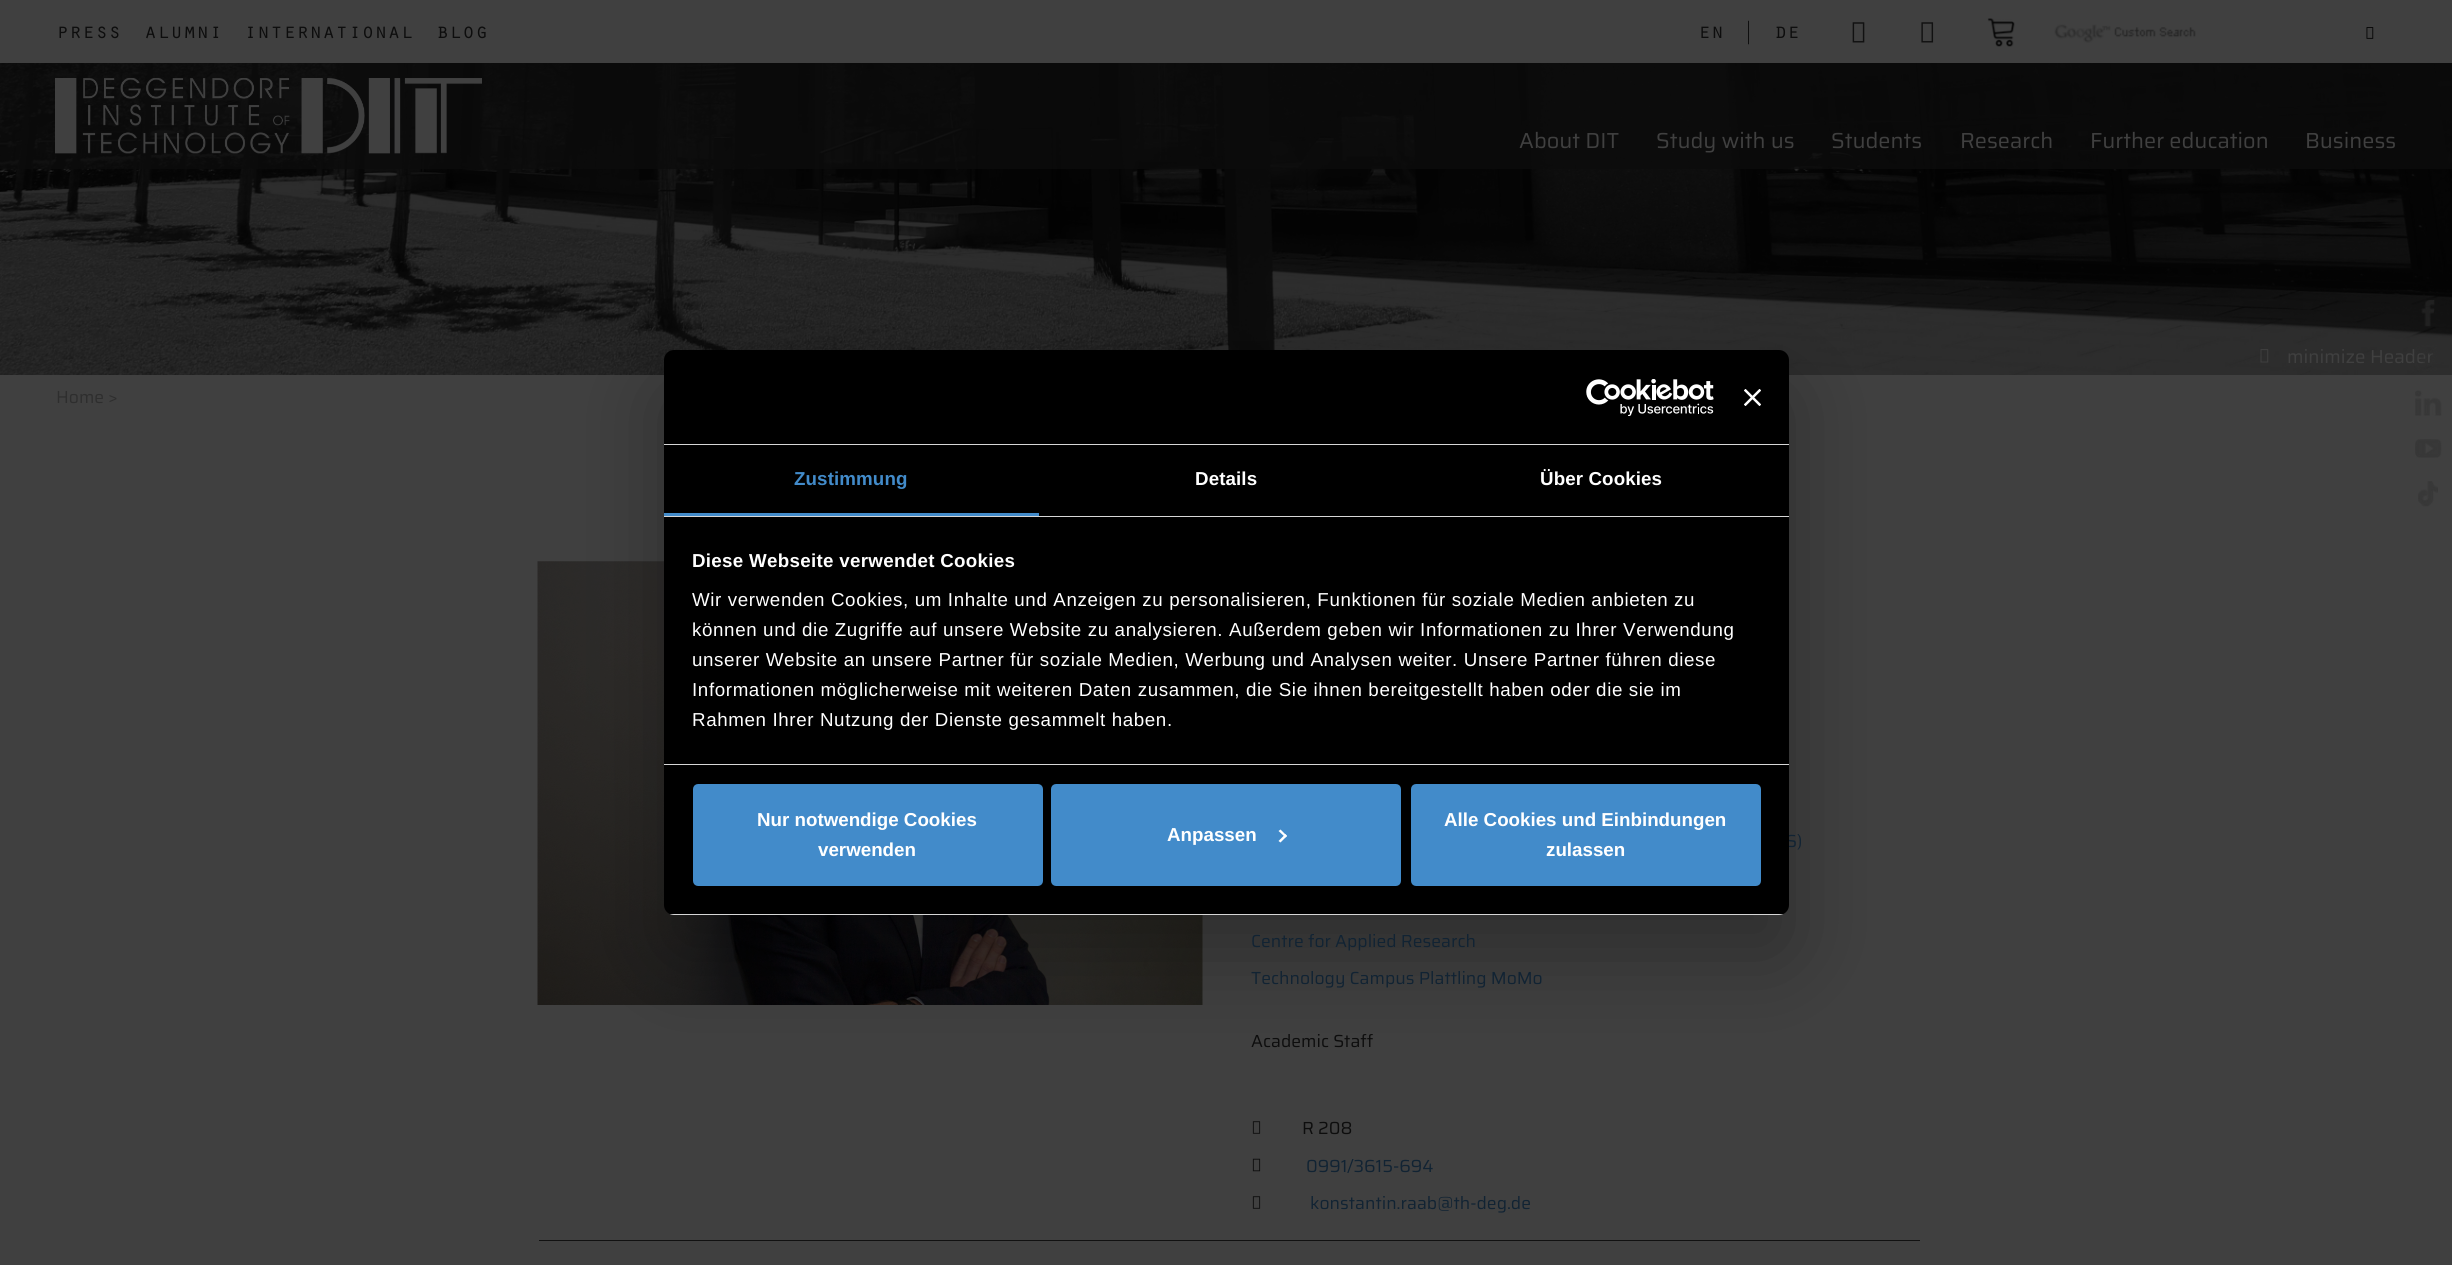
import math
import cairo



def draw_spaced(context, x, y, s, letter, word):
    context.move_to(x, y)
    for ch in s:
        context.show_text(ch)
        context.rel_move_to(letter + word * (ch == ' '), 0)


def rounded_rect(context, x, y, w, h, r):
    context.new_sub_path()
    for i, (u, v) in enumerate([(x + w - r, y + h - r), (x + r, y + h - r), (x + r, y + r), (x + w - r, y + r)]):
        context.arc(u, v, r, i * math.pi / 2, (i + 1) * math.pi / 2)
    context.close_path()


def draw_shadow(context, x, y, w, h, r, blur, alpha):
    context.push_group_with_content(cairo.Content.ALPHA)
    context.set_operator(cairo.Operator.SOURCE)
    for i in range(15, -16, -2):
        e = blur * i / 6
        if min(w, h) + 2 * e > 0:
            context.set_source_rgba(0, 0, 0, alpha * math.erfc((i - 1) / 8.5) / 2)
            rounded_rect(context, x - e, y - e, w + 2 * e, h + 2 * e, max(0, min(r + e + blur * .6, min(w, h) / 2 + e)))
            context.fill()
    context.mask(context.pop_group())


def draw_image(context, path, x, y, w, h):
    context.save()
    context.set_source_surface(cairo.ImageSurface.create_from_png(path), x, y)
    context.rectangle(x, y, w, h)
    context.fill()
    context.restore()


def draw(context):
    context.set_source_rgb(64 / 255, 64 / 255, 64 / 255)
    context.paint()
    draw_image(context, "images/1.png", 1852, 22, 13, 21)
    draw_image(context, "images/2.png", 1921, 22, 13, 21)
    draw_image(context, "images/3.png", 1987, 18, 28, 29)
    draw_image(context, "images/4.png", 2053, 24, 143, 19)
    draw_image(context, "images/5.png", 2366, 27, 8, 12)
    draw_image(context, "images/7.png", 0, 63, 2452, 312)
    context.set_source_rgba(12 / 255, 12 / 255, 12 / 255, 0.8)
    context.rectangle(0, 63, 2452, 106)
    context.fill()
    draw_image(context, "images/6.png", 55, 78, 427, 76)
    draw_image(context, "images/8.png", 2260, 349, 9, 14)
    draw_image(context, "images/9.png", 2421, 300, 14, 27)
    draw_image(context, "images/11.png", 2415, 390, 27, 26)
    draw_image(context, "images/12.png", 2415, 439, 27, 19)
    draw_image(context, "images/13.png", 2418, 481, 20, 26)
    draw_image(context, "images/14.png", 537, 561, 666, 444)
    draw_image(context, "images/15.png", 1252, 1121, 9, 13)
    draw_image(context, "images/16.png", 1252, 1158, 9, 14)
    draw_image(context, "images/15.png", 1252, 1196, 9, 13)
    context.set_source_rgb(17 / 255, 17 / 255, 17 / 255)
    context.rectangle(539, 1240, 1381, 1)
    context.fill()
    context.set_source_rgb(0, 0, 0)
    draw_shadow(context, 664, 390, 1125, 565, 10, 42.5, 0.3)
    context.select_font_face("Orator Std")
    context.set_font_size(21.75)
    context.set_source_rgb(13 / 255, 13 / 255, 13 / 255)
    context.move_to(56, 38)
    context.show_text("press")
    context.move_to(144, 38)
    context.show_text("alumni")
    context.move_to(244, 38)
    context.show_text("international")
    context.move_to(436, 38)
    context.show_text("blog")
    context.move_to(1698, 38)
    context.show_text("en")
    context.move_to(1742, 38)
    context.show_text("|")
    context.move_to(1774, 38)
    context.show_text("de")
    context.select_font_face("Saira")
    context.set_source_rgb(64 / 255, 64 / 255, 64 / 255)
    context.move_to(1519, 148)
    context.show_text("About DIT")
    context.move_to(1656, 148)
    context.show_text("Study with us")
    context.move_to(1831, 148)
    context.show_text("Students")
    context.move_to(1960, 148)
    context.show_text("Research")
    context.move_to(2090, 148)
    context.show_text("Further education")
    context.move_to(2305, 148)
    context.show_text("Business")
    context.set_font_size(18.75)
    context.move_to(2287, 363)
    context.show_text("minimize Header")
    context.set_font_size(17.5)
    context.set_source_rgb(46 / 255, 46 / 255, 46 / 255)
    context.move_to(56, 403)
    context.show_text("Home >")
    draw_image(context, "images/10.png", 2415, 345, 22, 26)
    context.set_source_rgb(17 / 255, 35 / 255, 51 / 255)
    context.move_to(1786, 847)
    context.show_text("S)")
    context.move_to(1251, 947)
    context.show_text("Centre for Applied Research")
    context.move_to(1251, 984)
    context.show_text("Technology Campus Plattling MoMo")
    context.set_source_rgb(13 / 255, 13 / 255, 13 / 255)
    context.move_to(1251, 1047)
    context.show_text("Academic Staff")
    context.move_to(1302, 1134)
    context.show_text("R 208")
    context.set_source_rgb(17 / 255, 35 / 255, 51 / 255)
    context.move_to(1306, 1172)
    context.show_text("0991/3615-694")
    context.move_to(1310, 1209)
    context.show_text("konstantin.raab@th-deg.de")
    context.set_source_rgb(0, 0, 0)
    rounded_rect(context, 664, 350, 1125, 565, 10)
    context.fill()
    context.set_source_rgb(214 / 255, 214 / 255, 214 / 255)
    context.rectangle(664, 444, 1125, 1)
    context.fill()
    draw_image(context, "images/17.png", 1586, 379, 128, 37)
    draw_image(context, "images/18.png", 1744, 389, 17, 17)
    context.rectangle(664, 516, 1125, 1)
    context.fill()
    context.set_source_rgb(66 / 255, 139 / 255, 202 / 255)
    context.rectangle(664, 513, 375, 3)
    context.fill()
    context.select_font_face("Liberation Sans", cairo.FontSlant.NORMAL, cairo.FontWeight.BOLD)
    context.set_font_size(18.75)
    draw_spaced(context, 794, 485, "Zustimmung", 0.1, 0)
    context.set_source_rgb(1, 1, 1)
    draw_spaced(context, 1195, 485, "Details", 0.1, 0)
    draw_spaced(context, 1540, 485, "Über Cookies", 0.1, 0)
    context.set_source_rgb(214 / 255, 214 / 255, 214 / 255)
    context.rectangle(664, 764, 1125, 1)
    context.fill()
    context.set_source_rgb(1, 1, 1)
    draw_spaced(context, 692, 567, "Diese Webseite verwendet Cookies", 0.3, 0)
    context.select_font_face("Liberation Sans")
    draw_spaced(context, 692, 606, "Wir verwenden Cookies, um Inhalte und Anzeigen zu personalisieren, Funktionen für soziale Medien anbieten zu", 0.62, 0)
    draw_spaced(context, 692, 636, "können und die Zugriffe auf unsere Website zu analysieren. Außerdem geben wir Informationen zu Ihrer Verwendung", 0.62, 0)
    draw_spaced(context, 692, 666, "unserer Website an unsere Partner für soziale Medien, Werbung und Analysen weiter. Unsere Partner führen diese", 0.62, 0)
    draw_spaced(context, 692, 696, "Informationen möglicherweise mit weiteren Daten zusammen, die Sie ihnen bereitgestellt haben oder die sie im", 0.62, 0)
    draw_spaced(context, 692, 726, "Rahmen Ihrer Nutzung der Dienste gesammelt haben.", 0.62, 0)
    context.save()
    rounded_rect(context, 664, 350, 1125, 565, 10)
    context.clip()
    context.set_source_rgb(214 / 255, 214 / 255, 214 / 255)
    context.rectangle(664, 914, 1125, 1)
    context.fill()
    context.restore()
    context.set_source_rgb(66 / 255, 139 / 255, 202 / 255)
    rounded_rect(context, 694.5, 785.5, 347, 99, 3.5)
    context.fill_preserve()
    context.set_line_width(3)
    context.stroke()
    context.select_font_face("Liberation Sans", cairo.FontSlant.NORMAL, cairo.FontWeight.BOLD)
    context.set_source_rgb(1, 1, 1)
    context.move_to(757, 826)
    context.show_text("Nur notwendige Cookies")
    context.move_to(818, 856)
    context.show_text("verwenden")
    context.set_source_rgb(66 / 255, 139 / 255, 202 / 255)
    rounded_rect(context, 1052.5, 785.5, 347, 99, 3.5)
    context.fill_preserve()
    context.stroke()
    context.set_source_rgb(1, 1, 1)
    context.move_to(1167, 841)
    context.show_text("Anpassen")
    context.new_path()
    context.move_to(1280.5, 829.5)
    context.line_to(1287, 836)
    context.line_to(1285.5, 837.5)
    context.line_to(1278.5, 831)
    context.close_path()
    context.fill()
    context.new_path()
    context.move_to(1285.5, 834)
    context.line_to(1287, 836)
    context.line_to(1280.5, 842.5)
    context.line_to(1278.5, 841)
    context.close_path()
    context.fill()
    context.set_source_rgb(66 / 255, 139 / 255, 202 / 255)
    rounded_rect(context, 1412.5, 785.5, 347, 99, 3.5)
    context.fill_preserve()
    context.stroke()
    context.set_source_rgb(1, 1, 1)
    context.move_to(1444, 826)
    context.show_text("Alle Cookies und Einbindungen")
    context.move_to(1546, 856)
    context.show_text("zulassen")


surface = cairo.ImageSurface(cairo.Format.RGB24, 2452, 1265)
context = cairo.Context(surface)
options = cairo.FontOptions()
options.set_hint_metrics(cairo.HintMetrics.OFF)
options.set_hint_style(cairo.HintStyle.NONE)
context.set_font_options(options)
context.set_miter_limit(4)
draw(context)
surface.write_to_png("out.png")
